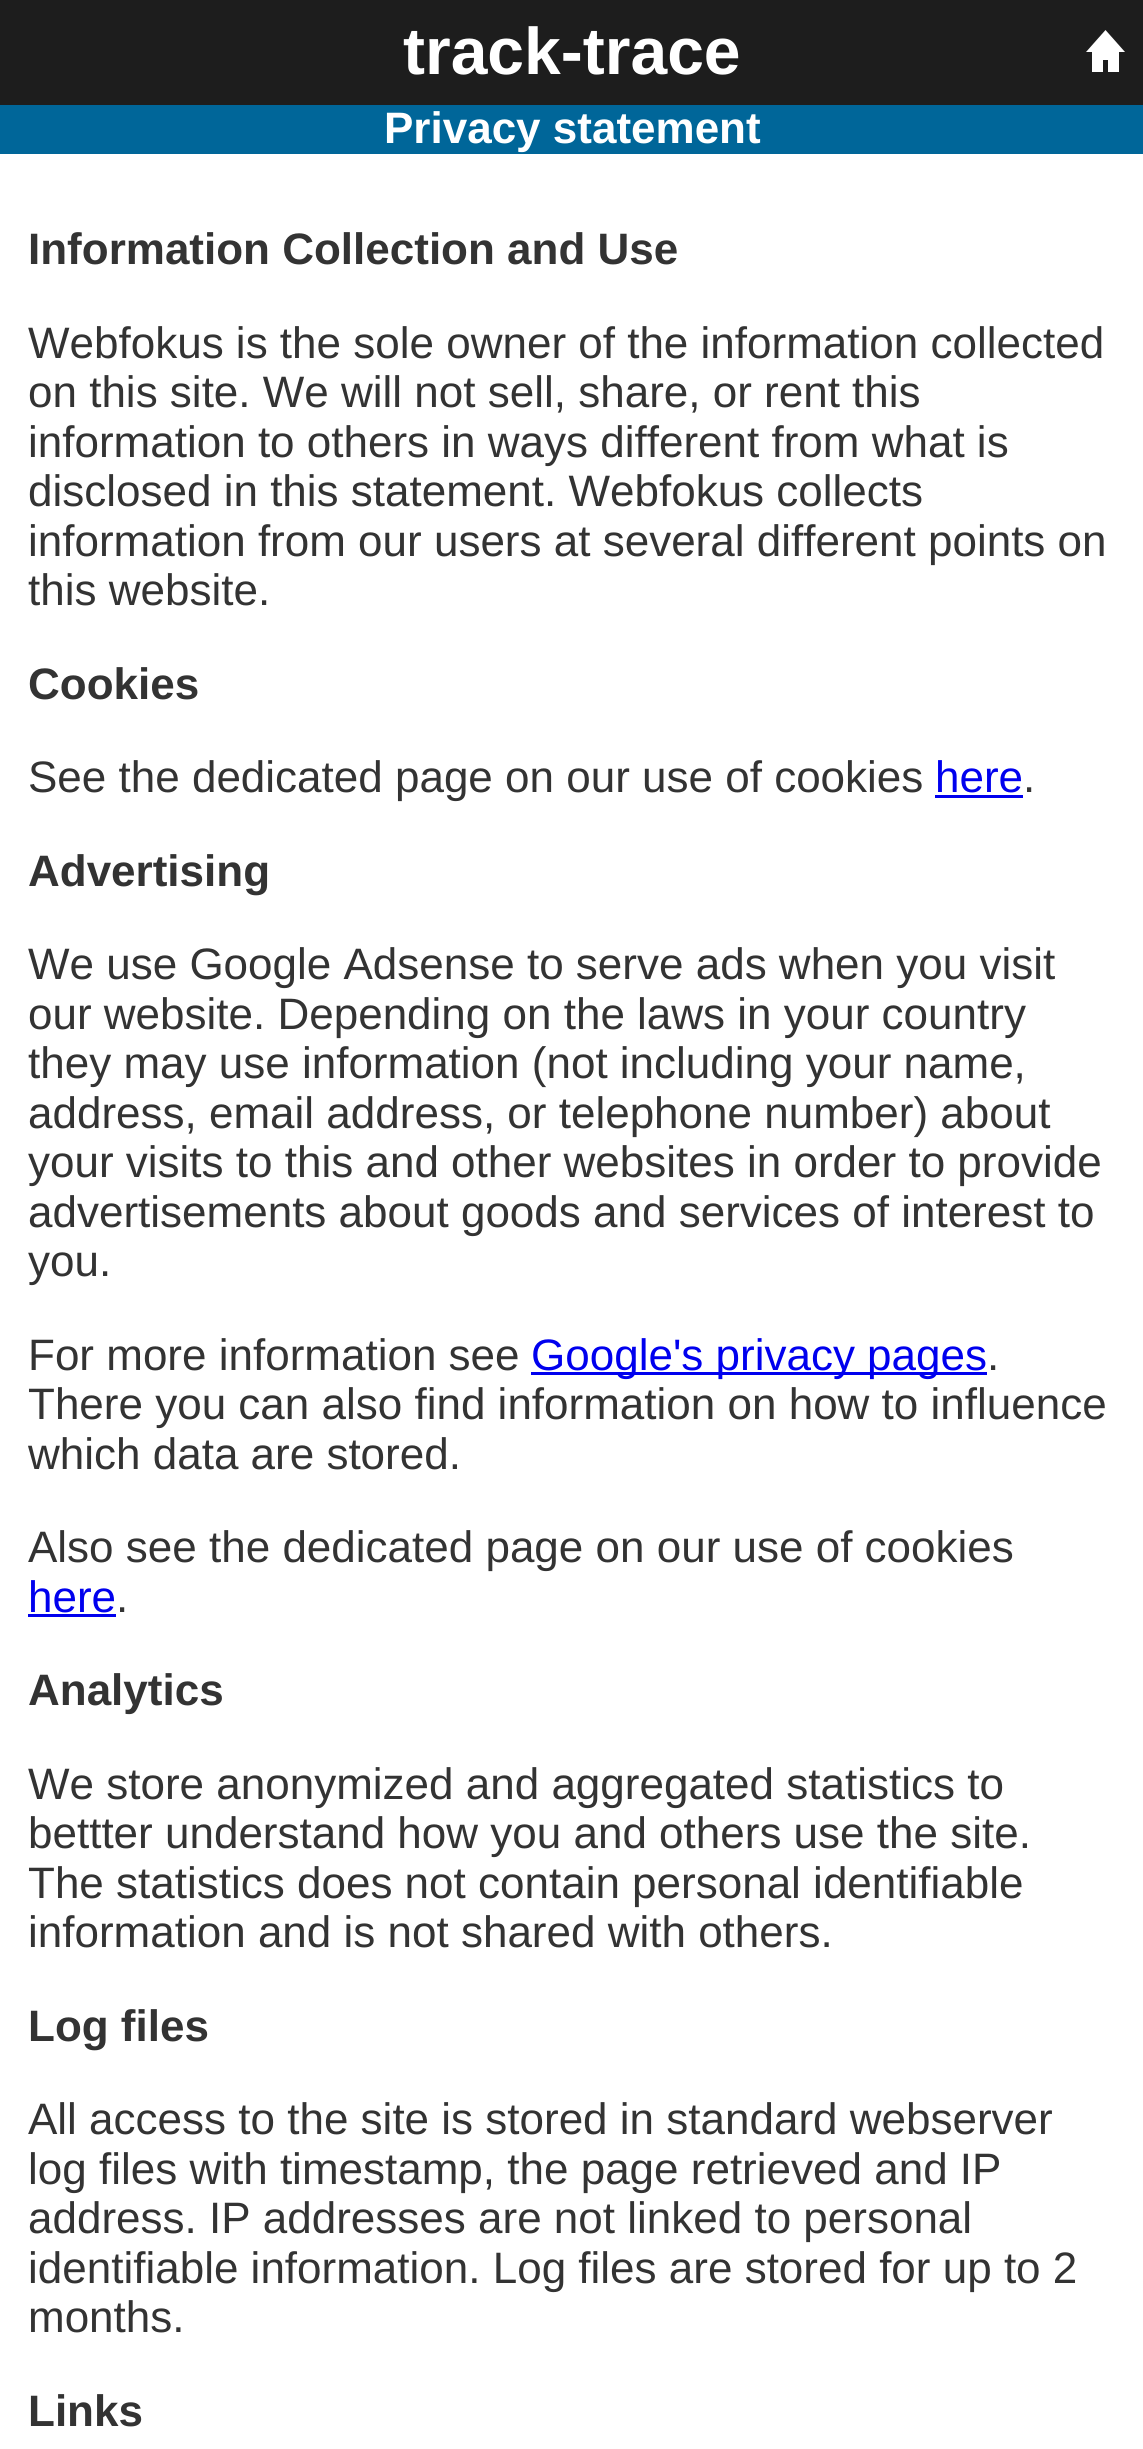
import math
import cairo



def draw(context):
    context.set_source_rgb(1, 1, 1)
    context.paint()
    context.set_source_rgb(29 / 255, 29 / 255, 29 / 255)
    context.rectangle(0, 0, 1143, 105)
    context.fill()
    context.set_source_rgb(1, 1, 1)
    context.new_path()
    context.move_to(1125, 52)
    context.line_to(1086, 52)
    context.line_to(1105.5, 30)
    context.close_path()
    context.fill()
    context.rectangle(1103, 52, 5, 8)
    context.fill()
    context.rectangle(1108, 52, 11, 20)
    context.fill()
    context.rectangle(1092, 52, 11, 20)
    context.fill()
    context.set_source_rgb(0, 102 / 255, 153 / 255)
    context.rectangle(0, 105, 1143, 49)
    context.fill()
    context.set_source_rgb(0, 0, 238 / 255)
    context.rectangle(935, 795, 88, 3)
    context.fill()
    context.rectangle(531, 1372, 456, 3)
    context.fill()
    context.rectangle(28, 1614, 88, 3)
    context.fill()
    context.select_font_face("Liberation Sans", cairo.FontSlant.NORMAL, cairo.FontWeight.BOLD)
    context.set_font_size(66)
    context.set_source_rgb(1, 1, 1)
    context.move_to(403, 74)
    context.show_text("track-trace")
    context.set_font_size(44)
    context.move_to(384, 143)
    context.show_text("Privacy statement")
    context.set_source_rgb(51 / 255, 51 / 255, 51 / 255)
    context.move_to(28, 264)
    context.show_text("Information Collection and Use")
    context.select_font_face("Liberation Sans")
    context.move_to(28, 358)
    context.show_text("Webfokus is the sole owner of the information collected")
    context.move_to(28, 407)
    context.show_text("on this site. We will not sell, share, or rent this")
    context.move_to(28, 457)
    context.show_text("information to others in ways different from what is")
    context.move_to(28, 506)
    context.show_text("disclosed in this statement. Webfokus collects")
    context.move_to(28, 556)
    context.show_text("information from our users at several different points on")
    context.move_to(28, 605)
    context.show_text("this website.")
    context.select_font_face("Liberation Sans", cairo.FontSlant.NORMAL, cairo.FontWeight.BOLD)
    context.move_to(28, 699)
    context.show_text("Cookies")
    context.select_font_face("Liberation Sans")
    context.move_to(28, 792)
    context.show_text("See the dedicated page on our use of cookies")
    context.set_source_rgb(0, 0, 238 / 255)
    context.move_to(935, 792)
    context.show_text("here")
    context.set_source_rgb(51 / 255, 51 / 255, 51 / 255)
    context.move_to(1023, 792)
    context.show_text(".")
    context.select_font_face("Liberation Sans", cairo.FontSlant.NORMAL, cairo.FontWeight.BOLD)
    context.move_to(28, 886)
    context.show_text("Advertising")
    context.select_font_face("Liberation Sans")
    context.move_to(28, 979)
    context.show_text("We use Google Adsense to serve ads when you visit")
    context.move_to(28, 1029)
    context.show_text("our website. Depending on the laws in your country")
    context.move_to(28, 1078)
    context.show_text("they may use information (not including your name,")
    context.move_to(28, 1128)
    context.show_text("address, email address, or telephone number) about")
    context.move_to(28, 1177)
    context.show_text("your visits to this and other websites in order to provide")
    context.move_to(28, 1227)
    context.show_text("advertisements about goods and services of interest to")
    context.move_to(28, 1276)
    context.show_text("you.")
    context.move_to(28, 1370)
    context.show_text("For more information see")
    context.set_source_rgb(0, 0, 238 / 255)
    context.move_to(531, 1370)
    context.show_text("Google's privacy pages")
    context.set_source_rgb(51 / 255, 51 / 255, 51 / 255)
    context.move_to(987, 1370)
    context.show_text(".")
    context.move_to(28, 1419)
    context.show_text("There you can also find information on how to influence")
    context.move_to(28, 1469)
    context.show_text("which data are stored.")
    context.move_to(28, 1562)
    context.show_text("Also see the dedicated page on our use of cookies")
    context.set_source_rgb(0, 0, 238 / 255)
    context.move_to(28, 1612)
    context.show_text("here")
    context.set_source_rgb(51 / 255, 51 / 255, 51 / 255)
    context.move_to(116, 1612)
    context.show_text(".")
    context.select_font_face("Liberation Sans", cairo.FontSlant.NORMAL, cairo.FontWeight.BOLD)
    context.move_to(28, 1705)
    context.show_text("Analytics")
    context.select_font_face("Liberation Sans")
    context.move_to(28, 1799)
    context.show_text("We store anonymized and aggregated statistics to")
    context.move_to(28, 1848)
    context.show_text("bettter understand how you and others use the site.")
    context.move_to(28, 1898)
    context.show_text("The statistics does not contain personal identifiable")
    context.move_to(28, 1947)
    context.show_text("information and is not shared with others.")
    context.select_font_face("Liberation Sans", cairo.FontSlant.NORMAL, cairo.FontWeight.BOLD)
    context.move_to(28, 2041)
    context.show_text("Log files")
    context.select_font_face("Liberation Sans")
    context.move_to(28, 2134)
    context.show_text("All access to the site is stored in standard webserver")
    context.move_to(28, 2184)
    context.show_text("log files with timestamp, the page retrieved and IP")
    context.move_to(28, 2233)
    context.show_text("address. IP addresses are not linked to personal")
    context.move_to(28, 2283)
    context.show_text("identifiable information. Log files are stored for up to 2")
    context.move_to(28, 2332)
    context.show_text("months.")
    context.select_font_face("Liberation Sans", cairo.FontSlant.NORMAL, cairo.FontWeight.BOLD)
    context.move_to(28, 2426)
    context.show_text("Links")


surface = cairo.ImageSurface(cairo.Format.RGB24, 1143, 2449)
context = cairo.Context(surface)
options = cairo.FontOptions()
options.set_hint_metrics(cairo.HintMetrics.OFF)
options.set_hint_style(cairo.HintStyle.NONE)
context.set_font_options(options)
context.set_miter_limit(4)
draw(context)
surface.write_to_png("out.png")
